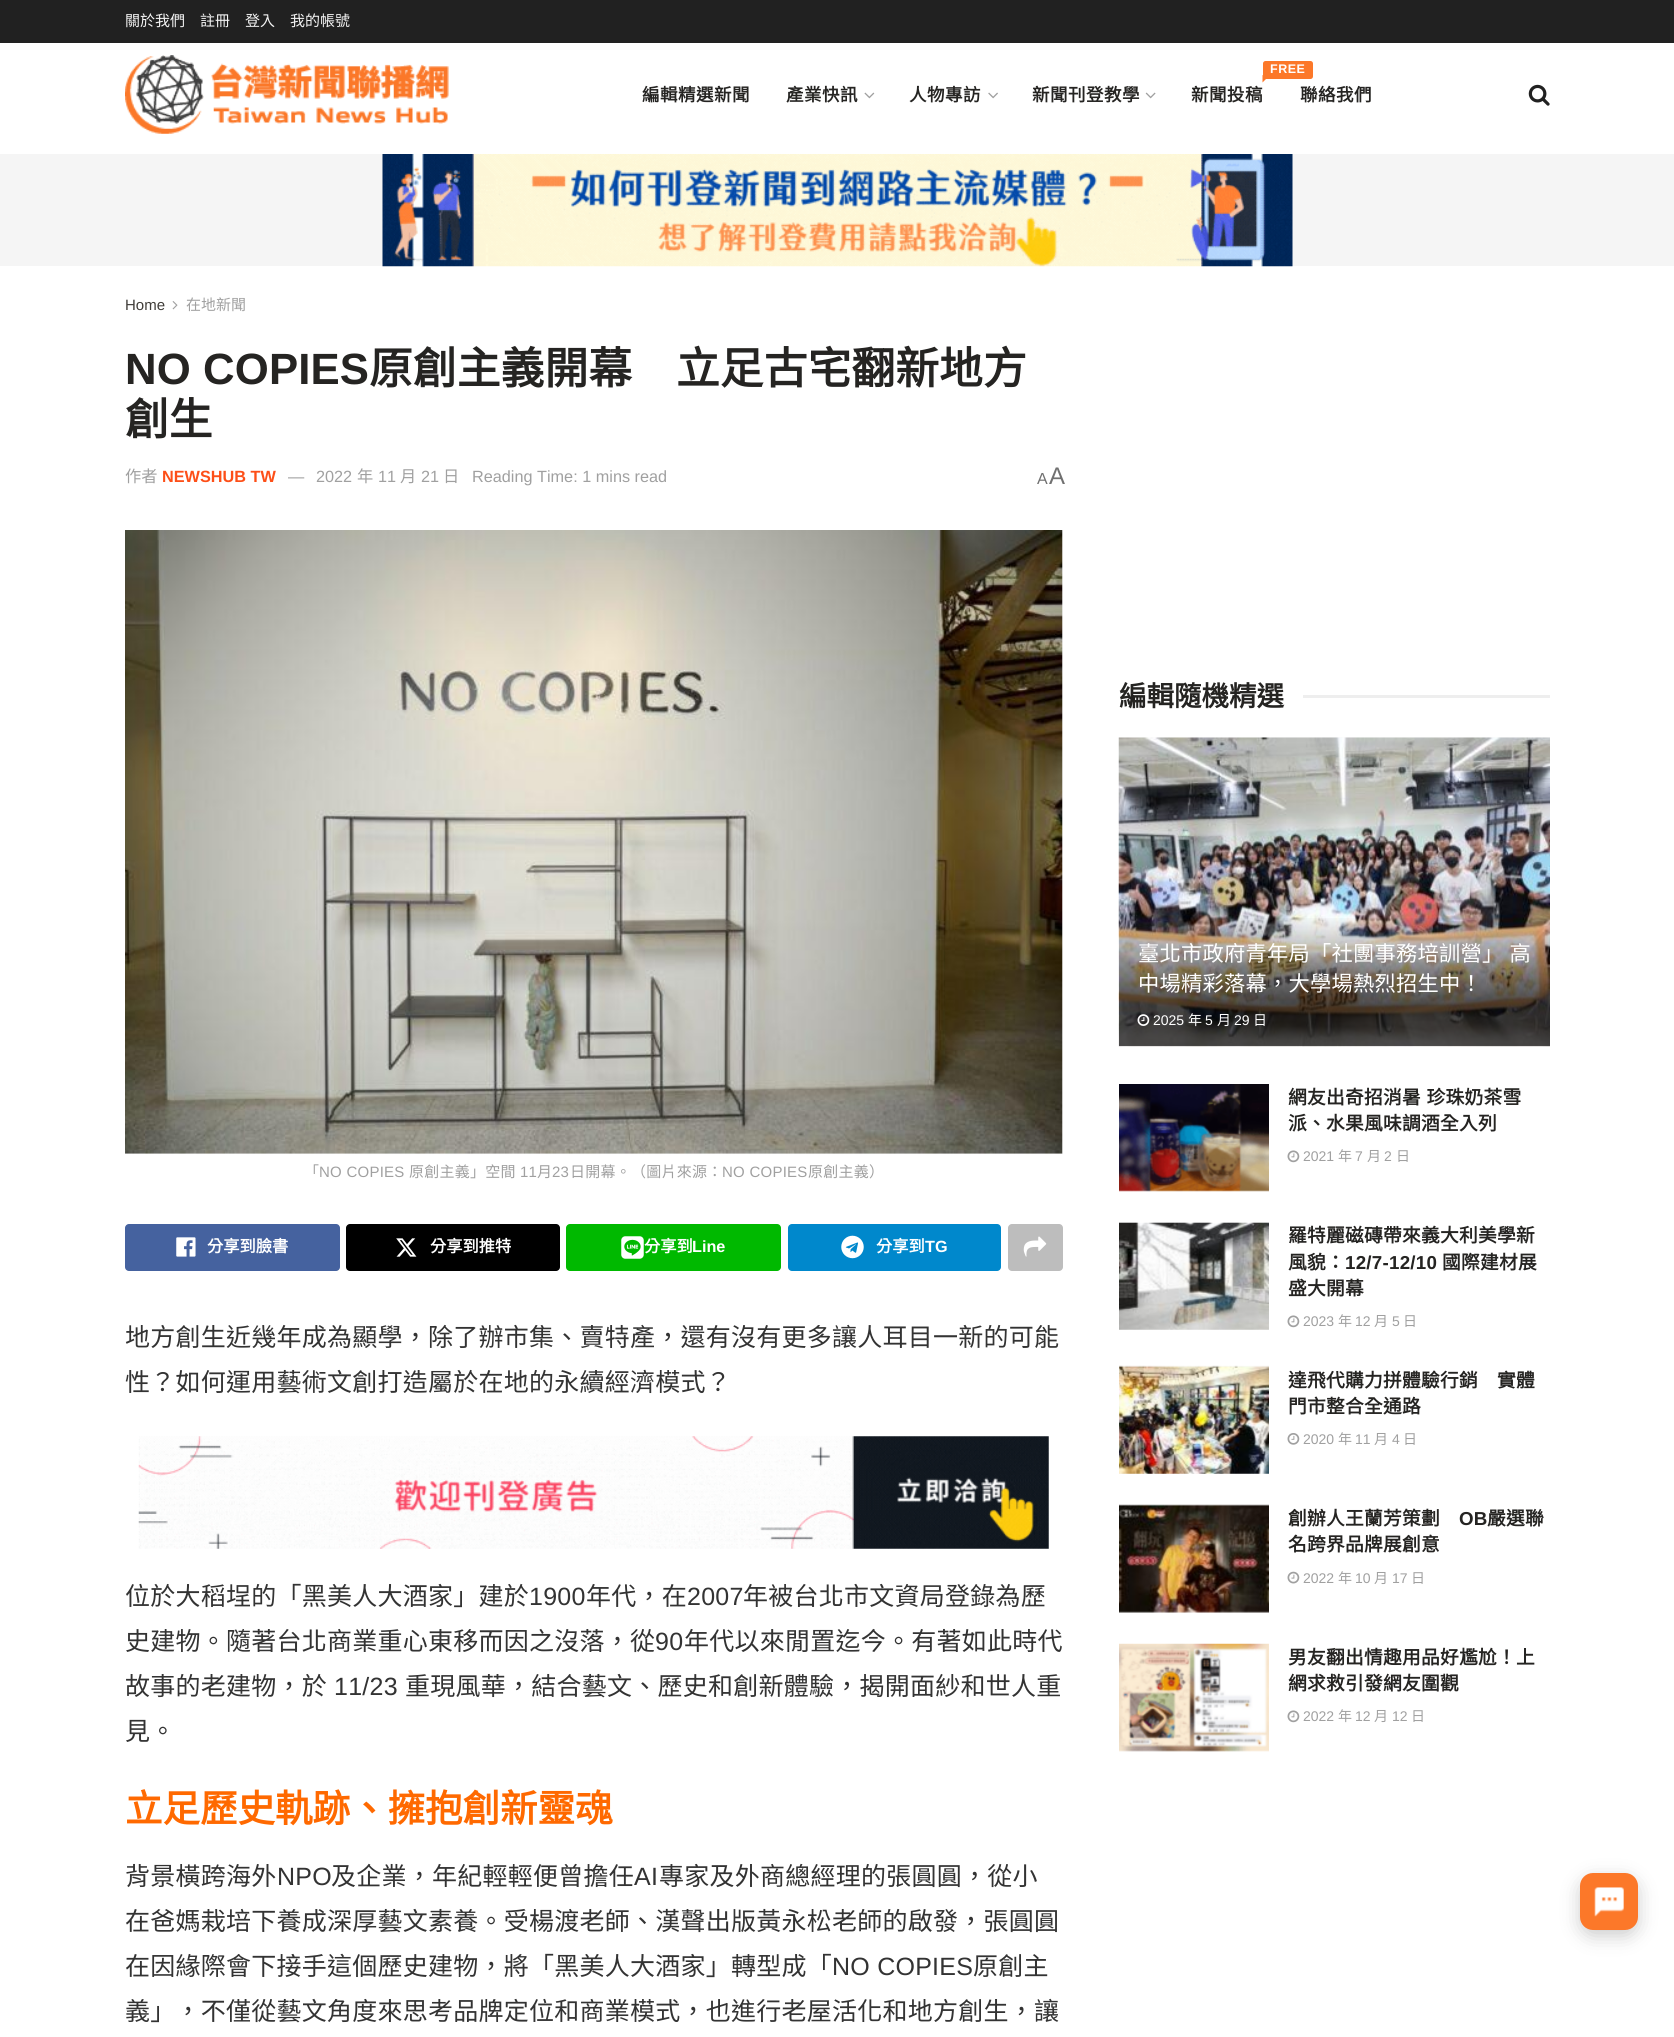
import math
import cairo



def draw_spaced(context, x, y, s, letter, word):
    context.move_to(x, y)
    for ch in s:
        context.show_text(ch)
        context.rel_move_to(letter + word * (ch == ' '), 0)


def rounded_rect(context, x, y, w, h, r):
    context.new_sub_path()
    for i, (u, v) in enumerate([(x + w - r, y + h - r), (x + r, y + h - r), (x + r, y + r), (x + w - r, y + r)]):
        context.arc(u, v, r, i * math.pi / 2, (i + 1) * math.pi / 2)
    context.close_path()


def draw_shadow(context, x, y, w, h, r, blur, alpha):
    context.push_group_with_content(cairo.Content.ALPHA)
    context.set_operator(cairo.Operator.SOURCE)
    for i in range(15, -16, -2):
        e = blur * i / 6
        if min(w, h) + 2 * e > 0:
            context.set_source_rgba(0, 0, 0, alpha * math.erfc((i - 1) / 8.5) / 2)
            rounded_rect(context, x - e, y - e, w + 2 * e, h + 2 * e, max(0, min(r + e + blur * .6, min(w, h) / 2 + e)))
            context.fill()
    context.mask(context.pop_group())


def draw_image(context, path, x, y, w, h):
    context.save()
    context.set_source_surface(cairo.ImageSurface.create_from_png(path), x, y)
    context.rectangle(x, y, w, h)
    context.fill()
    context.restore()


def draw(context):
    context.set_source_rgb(1, 1, 1)
    context.paint()
    context.set_source_rgb(33 / 255, 33 / 255, 33 / 255)
    context.rectangle(0, 0, 1674, 43)
    context.fill()
    draw_image(context, "images/1.png", 125, 55, 324, 79)
    draw_image(context, "images/2.png", 864, 92, 11, 7)
    draw_image(context, "images/3.png", 988, 92, 10, 7)
    draw_image(context, "images/4.png", 1145, 92, 11, 7)
    context.set_source_rgb(252 / 255, 120 / 255, 41 / 255)
    rounded_rect(context, 1263, 61, 50, 18, 2.5)
    context.fill()
    context.new_path()
    context.move_to(1262.5, 75)
    context.line_to(1270, 75)
    context.line_to(1266, 79)
    context.close_path()
    context.fill()
    context.new_path()
    context.move_to(1262.5, 82.5)
    context.line_to(1262.5, 75)
    context.line_to(1266, 79)
    context.close_path()
    context.fill()
    draw_image(context, "images/5.png", 1528, 84, 22, 22)
    context.set_source_rgb(245 / 255, 245 / 255, 245 / 255)
    context.rectangle(0, 154, 1674, 112)
    context.fill()
    draw_image(context, "images/6.png", 382, 154, 911, 113)
    draw_image(context, "images/7.png", 172, 301, 6, 9)
    context.set_source_rgb(247 / 255, 247 / 255, 247 / 255)
    context.rectangle(125, 530, 938, 624)
    context.fill()
    draw_image(context, "images/8.png", 125, 530, 938, 624)
    context.set_source_rgb(69 / 255, 98 / 255, 159 / 255)
    rounded_rect(context, 125, 1224, 215, 47, 4)
    context.fill()
    draw_image(context, "images/9.png", 176, 1237, 20, 20)
    context.set_source_rgb(0, 0, 0)
    rounded_rect(context, 346, 1224, 214, 47, 4)
    context.fill()
    draw_image(context, "images/10.png", 396, 1238, 21, 19)
    context.set_source_rgb(0, 185 / 255, 0)
    rounded_rect(context, 566, 1224, 215, 47, 4)
    context.fill()
    draw_image(context, "images/11.png", 621, 1236, 23, 23)
    context.set_source_rgb(0, 136 / 255, 204 / 255)
    rounded_rect(context, 788, 1224, 213, 47, 4)
    context.fill()
    draw_image(context, "images/12.png", 841, 1235, 23, 24)
    context.set_source_rgb(189 / 255, 189 / 255, 189 / 255)
    rounded_rect(context, 1008, 1224, 55, 47, 4)
    context.fill()
    draw_image(context, "images/13.png", 1023, 1236, 24, 21)
    draw_image(context, "images/14.png", 138, 1436, 911, 113)
    context.set_source_rgb(238 / 255, 238 / 255, 238 / 255)
    context.rectangle(1303, 695, 247, 3)
    context.fill()
    draw_image(context, "images/16.png", 1119, 737, 431, 310)
    draw_image(context, "images/15.png", 1118, 737, 432, 310)
    gradient = cairo.LinearGradient(1334, 915, 1334, 1046)
    gradient.add_color_stop_rgba(0, 0, 0, 0, 0)
    gradient.add_color_stop_rgba(0.7, 0, 0, 0, 0.65)
    context.set_source(gradient)
    context.rectangle(1119, 918, 431, 128)
    context.fill()
    draw_image(context, "images/17.png", 1137, 1014, 13, 12)
    draw_image(context, "images/18.png", 1119, 1084, 150, 108)
    draw_image(context, "images/19.png", 1287, 1150, 13, 13)
    draw_image(context, "images/20.png", 1119, 1222, 150, 108)
    draw_image(context, "images/19.png", 1287, 1315, 13, 13)
    context.set_source_rgb(247 / 255, 247 / 255, 247 / 255)
    context.rectangle(1119, 1366, 150, 108)
    context.fill()
    draw_image(context, "images/21.png", 1119, 1365, 150, 109)
    draw_image(context, "images/22.png", 1287, 1433, 13, 12)
    context.rectangle(1119, 1505, 150, 108)
    context.fill()
    draw_image(context, "images/23.png", 1119, 1504, 150, 109)
    draw_image(context, "images/24.png", 1287, 1571, 13, 13)
    draw_image(context, "images/25.png", 1119, 1643, 150, 109)
    draw_image(context, "images/19.png", 1287, 1710, 13, 13)
    context.set_source_rgb(0, 0, 0)
    draw_shadow(context, 1580, 1879, 58, 57, 13, 9.5, 0.2)
    context.set_source_rgb(252 / 255, 120 / 255, 41 / 255)
    rounded_rect(context, 1580, 1873, 58, 57, 13)
    context.fill()
    draw_image(context, "images/26.png", 1594, 1887, 30, 30)
    context.select_font_face("Noto Sans CJK TC")
    context.set_font_size(15)
    context.set_source_rgb(245 / 255, 245 / 255, 245 / 255)
    context.move_to(125, 26)
    context.show_text("關於我們")
    context.move_to(200, 26)
    context.show_text("註冊")
    context.move_to(245, 26)
    context.show_text("登入")
    context.move_to(290, 26)
    context.show_text("我的帳號")
    context.select_font_face("Noto Sans CJK TC", cairo.FontSlant.NORMAL, cairo.FontWeight.BOLD)
    context.set_font_size(17.5)
    context.set_source_rgb(37 / 255, 36 / 255, 34 / 255)
    draw_spaced(context, 642, 101, "編輯精選新聞", 0.5, 0)
    draw_spaced(context, 786, 101, "產業快訊", 0.5, 0)
    draw_spaced(context, 909, 101, "人物專訪", 0.5, 0)
    draw_spaced(context, 1032, 101, "新聞刊登教學", 0.5, 0)
    context.select_font_face("Liberation Sans", cairo.FontSlant.NORMAL, cairo.FontWeight.BOLD)
    context.set_font_size(12.5)
    context.set_source_rgb(1, 1, 1)
    draw_spaced(context, 1270, 73, "FREE", 0.5, 0)
    context.select_font_face("Noto Sans CJK TC", cairo.FontSlant.NORMAL, cairo.FontWeight.BOLD)
    context.set_font_size(17.5)
    context.set_source_rgb(37 / 255, 36 / 255, 34 / 255)
    draw_spaced(context, 1191, 101, "新聞投稿", 0.5, 0)
    draw_spaced(context, 1300, 101, "聯絡我們", 0.5, 0)
    context.select_font_face("Liberation Sans")
    context.set_font_size(15)
    context.set_source_rgb(64 / 255, 61 / 255, 57 / 255)
    context.move_to(125, 310)
    context.show_text("Home")
    context.select_font_face("Noto Sans CJK TC")
    context.set_source_rgb(160 / 255, 160 / 255, 160 / 255)
    context.move_to(186, 310)
    context.show_text("在地新聞")
    context.select_font_face("Liberation Sans", cairo.FontSlant.NORMAL, cairo.FontWeight.BOLD)
    context.set_font_size(43.75)
    context.set_source_rgb(37 / 255, 36 / 255, 34 / 255)
    draw_spaced(context, 125, 384, "NO COPIES", 0.1, 0)
    context.select_font_face("Noto Sans CJK TC", cairo.FontSlant.NORMAL, cairo.FontWeight.BOLD)
    draw_spaced(context, 369, 384, "原創主義開幕　立足古宅翻新地方", 0.1, 0)
    draw_spaced(context, 125, 435, "創生", 0.1, 0)
    context.select_font_face("Noto Sans CJK TC")
    context.set_font_size(16.25)
    context.set_source_rgb(160 / 255, 160 / 255, 160 / 255)
    context.move_to(125, 482)
    context.show_text("作者")
    context.select_font_face("Liberation Sans", cairo.FontSlant.NORMAL, cairo.FontWeight.BOLD)
    context.set_source_rgb(253 / 255, 79 / 255, 24 / 255)
    context.move_to(162, 482)
    context.show_text("NEWSHUB TW")
    context.select_font_face("Liberation Sans")
    context.set_source_rgb(160 / 255, 160 / 255, 160 / 255)
    context.move_to(288, 482)
    context.show_text("—")
    context.move_to(316, 482)
    context.show_text("2022")
    context.select_font_face("Noto Sans CJK TC")
    context.move_to(357, 482)
    context.show_text("年")
    context.select_font_face("Liberation Sans")
    context.move_to(378, 482)
    context.show_text("11")
    context.select_font_face("Noto Sans CJK TC")
    context.move_to(400, 482)
    context.show_text("月")
    context.select_font_face("Liberation Sans")
    context.move_to(421, 482)
    context.show_text("21")
    context.select_font_face("Noto Sans CJK TC")
    context.move_to(443, 482)
    context.show_text("日")
    context.select_font_face("Liberation Sans")
    context.move_to(472, 482)
    context.show_text("Reading Time: 1 mins read")
    context.set_font_size(16)
    context.set_source_rgb(112 / 255, 112 / 255, 112 / 255)
    context.move_to(1037, 484)
    context.show_text("A")
    context.set_font_size(24)
    context.move_to(1049, 484)
    context.show_text("A")
    context.select_font_face("Noto Sans CJK TC")
    context.set_font_size(15)
    context.set_source_rgb(160 / 255, 160 / 255, 160 / 255)
    draw_spaced(context, 304, 1177, "「", 0.25, 0)
    context.select_font_face("Liberation Sans")
    draw_spaced(context, 319, 1177, "NO COPIES", 0.25, 0)
    context.select_font_face("Noto Sans CJK TC")
    draw_spaced(context, 409, 1177, "原創主義」空間", 0.25, 0)
    context.select_font_face("Liberation Sans")
    draw_spaced(context, 520, 1177, "11", 0.25, 0)
    context.select_font_face("Noto Sans CJK TC")
    draw_spaced(context, 537, 1177, "月", 0.25, 0)
    context.select_font_face("Liberation Sans")
    draw_spaced(context, 552, 1177, "23", 0.25, 0)
    context.select_font_face("Noto Sans CJK TC")
    draw_spaced(context, 570, 1177, "日開幕。（圖片來源：", 0.25, 0)
    context.select_font_face("Liberation Sans")
    draw_spaced(context, 722, 1177, "NO COPIES", 0.25, 0)
    context.select_font_face("Noto Sans CJK TC")
    draw_spaced(context, 808, 1177, "原創主義）", 0.25, 0)
    context.select_font_face("Noto Sans CJK TC", cairo.FontSlant.NORMAL, cairo.FontWeight.BOLD)
    context.set_font_size(16.25)
    context.set_source_rgb(1, 1, 1)
    context.move_to(207, 1252)
    context.show_text("分享到臉書")
    context.move_to(430, 1252)
    context.show_text("分享到推特")
    context.move_to(644, 1252)
    context.show_text("分享到")
    context.select_font_face("Liberation Sans", cairo.FontSlant.NORMAL, cairo.FontWeight.BOLD)
    context.move_to(692, 1252)
    context.show_text("Line")
    context.select_font_face("Noto Sans CJK TC", cairo.FontSlant.NORMAL, cairo.FontWeight.BOLD)
    context.move_to(876, 1252)
    context.show_text("分享到")
    context.select_font_face("Liberation Sans", cairo.FontSlant.NORMAL, cairo.FontWeight.BOLD)
    context.move_to(925, 1252)
    context.show_text("TG")
    context.select_font_face("Noto Sans CJK TC")
    context.set_font_size(25)
    context.set_source_rgb(51 / 255, 51 / 255, 51 / 255)
    draw_spaced(context, 125, 1346, "地方創生近幾年成為顯學，除了辦市集、賣特產，還有沒有更多讓人耳目一新的可能", 0.25, 0)
    draw_spaced(context, 125, 1391, "性？如何運用藝術文創打造屬於在地的永續經濟模式？", 0.25, 0)
    draw_spaced(context, 125, 1605, "位於大稻埕的「黑美人大酒家」建於", 0.25, 0)
    context.select_font_face("Liberation Sans")
    draw_spaced(context, 529, 1605, "1900", 0.25, 0)
    context.select_font_face("Noto Sans CJK TC")
    draw_spaced(context, 586, 1605, "年代，在", 0.25, 0)
    context.select_font_face("Liberation Sans")
    draw_spaced(context, 687, 1605, "2007", 0.25, 0)
    context.select_font_face("Noto Sans CJK TC")
    draw_spaced(context, 743, 1605, "年被台北市文資局登錄為歷", 0.25, 0)
    draw_spaced(context, 125, 1650, "史建物。隨著台北商業重心東移而因之沒落，從", 0.25, 0)
    context.select_font_face("Liberation Sans")
    draw_spaced(context, 655, 1650, "90", 0.25, 0)
    context.select_font_face("Noto Sans CJK TC")
    draw_spaced(context, 684, 1650, "年代以來閒置迄今。有著如此時代", 0.25, 0)
    draw_spaced(context, 125, 1695, "故事的老建物，於", 0.25, 0)
    context.select_font_face("Liberation Sans")
    draw_spaced(context, 334, 1695, "11/23", 0.25, 0)
    context.select_font_face("Noto Sans CJK TC")
    draw_spaced(context, 405, 1695, "重現風華，結合藝文、歷史和創新體驗，揭開面紗和世人重", 0.25, 0)
    draw_spaced(context, 125, 1740, "見。", 0.25, 0)
    context.select_font_face("Noto Sans CJK TC", cairo.FontSlant.NORMAL, cairo.FontWeight.BOLD)
    context.set_font_size(37.5)
    context.set_source_rgb(1, 105 / 255, 0)
    context.move_to(125, 1822)
    context.show_text("立足歷史軌跡、擁抱創新靈魂")
    context.select_font_face("Noto Sans CJK TC")
    context.set_font_size(25)
    context.set_source_rgb(51 / 255, 51 / 255, 51 / 255)
    draw_spaced(context, 125, 1885, "背景橫跨海外", 0.25, 0)
    context.select_font_face("Liberation Sans")
    draw_spaced(context, 277, 1885, "NPO", 0.25, 0)
    context.select_font_face("Noto Sans CJK TC")
    draw_spaced(context, 331, 1885, "及企業，年紀輕輕便曾擔任", 0.25, 0)
    context.select_font_face("Liberation Sans")
    draw_spaced(context, 634, 1885, "AI", 0.25, 0)
    context.select_font_face("Noto Sans CJK TC")
    draw_spaced(context, 659, 1885, "專家及外商總經理的張圓圓，從小", 0.25, 0)
    draw_spaced(context, 125, 1930, "在爸媽栽培下養成深厚藝文素養。受楊渡老師、漢聲出版黃永松老師的啟發，張圓圓", 0.25, 0)
    draw_spaced(context, 125, 1975, "在因緣際會下接手這個歷史建物，將「黑美人大酒家」轉型成「", 0.25, 0)
    context.select_font_face("Liberation Sans")
    draw_spaced(context, 832, 1975, "NO COPIES", 0.25, 0)
    context.select_font_face("Noto Sans CJK TC")
    draw_spaced(context, 973, 1975, "原創主", 0.25, 0)
    draw_spaced(context, 125, 2020, "義」，不僅從藝文角度來思考品牌定位和商業模式，也進行老屋活化和地方創生，讓", 0.25, 0)
    context.select_font_face("Noto Sans CJK TC", cairo.FontSlant.NORMAL, cairo.FontWeight.BOLD)
    context.set_font_size(27.5)
    context.set_source_rgb(37 / 255, 36 / 255, 34 / 255)
    context.move_to(1119, 706)
    context.show_text("編輯隨機精選")
    context.select_font_face("Noto Sans CJK TC")
    context.set_font_size(21.25)
    context.set_source_rgb(1, 1, 1)
    draw_spaced(context, 1138, 961, "臺北市政府青年局「社團事務培訓營」 高", 0.25, 1)
    draw_spaced(context, 1138, 991, "中場精彩落幕，大學場熱烈招生中！", 0.25, 0)
    context.select_font_face("Liberation Sans")
    context.set_font_size(14)
    context.move_to(1153, 1025)
    context.show_text("2025")
    context.select_font_face("Noto Sans CJK TC")
    context.move_to(1188, 1025)
    context.show_text("年")
    context.select_font_face("Liberation Sans")
    context.move_to(1205, 1025)
    context.show_text("5")
    context.select_font_face("Noto Sans CJK TC")
    context.move_to(1217, 1025)
    context.show_text("月")
    context.select_font_face("Liberation Sans")
    context.move_to(1234, 1025)
    context.show_text("29")
    context.select_font_face("Noto Sans CJK TC")
    context.move_to(1253, 1025)
    context.show_text("日")
    context.select_font_face("Noto Sans CJK TC", cairo.FontSlant.NORMAL, cairo.FontWeight.BOLD)
    context.set_font_size(18.75)
    context.set_source_rgb(37 / 255, 36 / 255, 34 / 255)
    draw_spaced(context, 1288, 1104, "網友出奇招消暑 珍珠奶茶雪", 0.25, 1)
    draw_spaced(context, 1288, 1130, "派、水果風味調酒全入列", 0.25, 0)
    context.select_font_face("Liberation Sans")
    context.set_font_size(14)
    context.set_source_rgb(160 / 255, 160 / 255, 160 / 255)
    context.move_to(1303, 1161)
    context.show_text("2021")
    context.select_font_face("Noto Sans CJK TC")
    context.move_to(1338, 1161)
    context.show_text("年")
    context.select_font_face("Liberation Sans")
    context.move_to(1355, 1161)
    context.show_text("7")
    context.select_font_face("Noto Sans CJK TC")
    context.move_to(1367, 1161)
    context.show_text("月")
    context.select_font_face("Liberation Sans")
    context.move_to(1384, 1161)
    context.show_text("2")
    context.select_font_face("Noto Sans CJK TC")
    context.move_to(1396, 1161)
    context.show_text("日")
    context.select_font_face("Noto Sans CJK TC", cairo.FontSlant.NORMAL, cairo.FontWeight.BOLD)
    context.set_font_size(18.75)
    context.set_source_rgb(37 / 255, 36 / 255, 34 / 255)
    draw_spaced(context, 1288, 1242, "羅特麗磁磚帶來義大利美學新", 0.25, 0)
    draw_spaced(context, 1288, 1269, "風貌：", 0.25, 0)
    context.select_font_face("Liberation Sans", cairo.FontSlant.NORMAL, cairo.FontWeight.BOLD)
    draw_spaced(context, 1345, 1269, "12/7-12/10", 0.25, 0)
    context.select_font_face("Noto Sans CJK TC", cairo.FontSlant.NORMAL, cairo.FontWeight.BOLD)
    draw_spaced(context, 1442, 1269, "國際建材展", 0.25, 0)
    draw_spaced(context, 1288, 1295, "盛大開幕", 0.25, 0)
    context.select_font_face("Liberation Sans")
    context.set_font_size(14)
    context.set_source_rgb(160 / 255, 160 / 255, 160 / 255)
    context.move_to(1303, 1326)
    context.show_text("2023")
    context.select_font_face("Noto Sans CJK TC")
    context.move_to(1338, 1326)
    context.show_text("年")
    context.select_font_face("Liberation Sans")
    context.move_to(1355, 1326)
    context.show_text("12")
    context.select_font_face("Noto Sans CJK TC")
    context.move_to(1374, 1326)
    context.show_text("月")
    context.select_font_face("Liberation Sans")
    context.move_to(1392, 1326)
    context.show_text("5")
    context.select_font_face("Noto Sans CJK TC")
    context.move_to(1403, 1326)
    context.show_text("日")
    context.select_font_face("Noto Sans CJK TC", cairo.FontSlant.NORMAL, cairo.FontWeight.BOLD)
    context.set_font_size(18.75)
    context.set_source_rgb(37 / 255, 36 / 255, 34 / 255)
    draw_spaced(context, 1288, 1387, "達飛代購力拼體驗行銷　實體", 0.25, 0)
    draw_spaced(context, 1288, 1413, "門市整合全通路", 0.25, 0)
    context.select_font_face("Liberation Sans")
    context.set_font_size(14)
    context.set_source_rgb(160 / 255, 160 / 255, 160 / 255)
    context.move_to(1303, 1444)
    context.show_text("2020")
    context.select_font_face("Noto Sans CJK TC")
    context.move_to(1338, 1444)
    context.show_text("年")
    context.select_font_face("Liberation Sans")
    context.move_to(1355, 1444)
    context.show_text("11")
    context.select_font_face("Noto Sans CJK TC")
    context.move_to(1374, 1444)
    context.show_text("月")
    context.select_font_face("Liberation Sans")
    context.move_to(1392, 1444)
    context.show_text("4")
    context.select_font_face("Noto Sans CJK TC")
    context.move_to(1403, 1444)
    context.show_text("日")
    context.select_font_face("Noto Sans CJK TC", cairo.FontSlant.NORMAL, cairo.FontWeight.BOLD)
    context.set_font_size(18.75)
    context.set_source_rgb(37 / 255, 36 / 255, 34 / 255)
    draw_spaced(context, 1288, 1525, "創辦人王蘭芳策劃", 0.25, 0)
    context.select_font_face("Liberation Sans", cairo.FontSlant.NORMAL, cairo.FontWeight.BOLD)
    draw_spaced(context, 1459, 1525, "OB", 0.25, 0)
    context.select_font_face("Noto Sans CJK TC", cairo.FontSlant.NORMAL, cairo.FontWeight.BOLD)
    draw_spaced(context, 1487, 1525, "嚴選聯", 0.25, 0)
    draw_spaced(context, 1288, 1551, "名跨界品牌展創意", 0.25, 0)
    context.select_font_face("Liberation Sans")
    context.set_font_size(14)
    context.set_source_rgb(160 / 255, 160 / 255, 160 / 255)
    context.move_to(1303, 1583)
    context.show_text("2022")
    context.select_font_face("Noto Sans CJK TC")
    context.move_to(1338, 1583)
    context.show_text("年")
    context.select_font_face("Liberation Sans")
    context.move_to(1355, 1583)
    context.show_text("10")
    context.select_font_face("Noto Sans CJK TC")
    context.move_to(1374, 1583)
    context.show_text("月")
    context.select_font_face("Liberation Sans")
    context.move_to(1392, 1583)
    context.show_text("17")
    context.select_font_face("Noto Sans CJK TC")
    context.move_to(1411, 1583)
    context.show_text("日")
    context.select_font_face("Noto Sans CJK TC", cairo.FontSlant.NORMAL, cairo.FontWeight.BOLD)
    context.set_font_size(18.75)
    context.set_source_rgb(37 / 255, 36 / 255, 34 / 255)
    draw_spaced(context, 1288, 1664, "男友翻出情趣用品好尷尬！上", 0.25, 0)
    draw_spaced(context, 1288, 1690, "網求救引發網友圍觀", 0.25, 0)
    context.select_font_face("Liberation Sans")
    context.set_font_size(14)
    context.set_source_rgb(160 / 255, 160 / 255, 160 / 255)
    context.move_to(1303, 1721)
    context.show_text("2022")
    context.select_font_face("Noto Sans CJK TC")
    context.move_to(1338, 1721)
    context.show_text("年")
    context.select_font_face("Liberation Sans")
    context.move_to(1355, 1721)
    context.show_text("12")
    context.select_font_face("Noto Sans CJK TC")
    context.move_to(1374, 1721)
    context.show_text("月")
    context.select_font_face("Liberation Sans")
    context.move_to(1392, 1721)
    context.show_text("12")
    context.select_font_face("Noto Sans CJK TC")
    context.move_to(1411, 1721)
    context.show_text("日")


surface = cairo.ImageSurface(cairo.Format.RGB24, 1674, 2037)
context = cairo.Context(surface)
options = cairo.FontOptions()
options.set_hint_metrics(cairo.HintMetrics.OFF)
options.set_hint_style(cairo.HintStyle.NONE)
context.set_font_options(options)
context.set_miter_limit(4)
draw(context)
surface.write_to_png("out.png")
